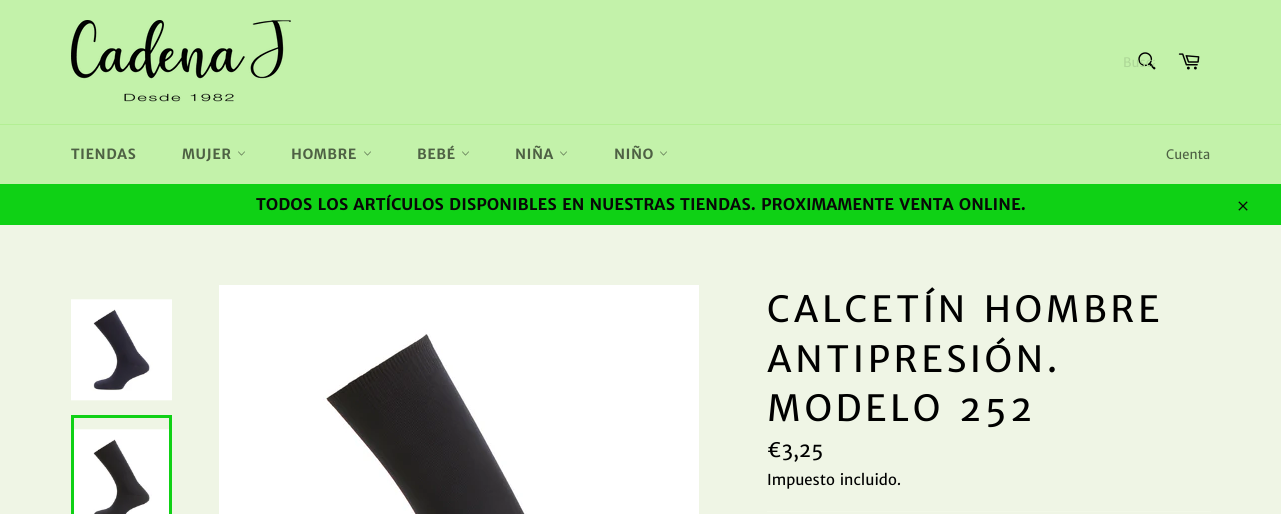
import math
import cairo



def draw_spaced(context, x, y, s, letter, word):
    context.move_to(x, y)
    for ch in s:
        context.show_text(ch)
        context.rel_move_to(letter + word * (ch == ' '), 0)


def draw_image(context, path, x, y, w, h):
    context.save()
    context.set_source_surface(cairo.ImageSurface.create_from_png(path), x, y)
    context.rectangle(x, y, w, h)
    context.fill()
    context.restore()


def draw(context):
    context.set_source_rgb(195 / 255, 242 / 255, 170 / 255)
    context.paint()
    draw_image(context, "images/1.png", 71, 20, 220, 82)
    draw_image(context, "images/2.png", 1138, 52, 18, 18)
    draw_image(context, "images/3.png", 1178, 53, 22, 17)
    context.set_source_rgb(179 / 255, 239 / 255, 148 / 255)
    context.rectangle(0, 124, 1281, 1)
    context.fill()
    draw_image(context, "images/4.png", 238, 151, 7, 5)
    draw_image(context, "images/4.png", 364, 151, 7, 5)
    draw_image(context, "images/4.png", 462, 151, 7, 5)
    draw_image(context, "images/4.png", 560, 151, 7, 5)
    draw_image(context, "images/4.png", 660, 151, 7, 5)
    context.set_source_rgb(15 / 255, 209 / 255, 21 / 255)
    context.rectangle(0, 184, 1281, 41)
    context.fill()
    draw_image(context, "images/5.png", 1238, 201, 10, 10)
    context.set_source_rgb(239 / 255, 245 / 255, 229 / 255)
    context.rectangle(0, 225, 1281, 289)
    context.fill()
    draw_image(context, "images/6.png", 71, 299, 101, 102)
    draw_image(context, "images/7.png", 74, 429, 95, 85)
    context.rectangle(72.5, 416.5, 98, 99)
    context.set_source_rgb(15 / 255, 209 / 255, 21 / 255)
    context.set_line_width(3)
    context.stroke()
    draw_image(context, "images/8.png", 219, 285, 480, 229)
    context.set_source_rgb(242 / 255, 248 / 255, 232 / 255)
    context.rectangle(767, 511, 444, 1)
    context.fill()
    context.save()
    context.rectangle(1123, 54, 32, 17)
    context.clip()
    context.select_font_face("Merriweather Sans")
    context.set_font_size(13)
    context.set_source_rgb(174 / 255, 216 / 255, 152 / 255)
    context.move_to(1123, 67)
    context.show_text("Busca")
    context.restore()
    context.select_font_face("Merriweather Sans", cairo.FontSlant.NORMAL, cairo.FontWeight.BOLD)
    context.set_font_size(14)
    context.set_source_rgb(78 / 255, 97 / 255, 68 / 255)
    draw_spaced(context, 71, 159, "TIENDAS", 0.5, 0)
    draw_spaced(context, 182, 159, "MUJER", 0.5, 0)
    draw_spaced(context, 291, 159, "HOMBRE", 0.5, 0)
    draw_spaced(context, 417, 159, "BEBÉ", 0.5, 0)
    draw_spaced(context, 515, 159, "NIÑA", 0.5, 0)
    draw_spaced(context, 614, 159, "NIÑO", 0.5, 0)
    context.select_font_face("Merriweather Sans")
    context.set_font_size(13)
    context.move_to(1166, 159)
    context.show_text("Cuenta")
    context.select_font_face("Merriweather Sans", cairo.FontSlant.NORMAL, cairo.FontWeight.BOLD)
    context.set_font_size(16)
    context.set_source_rgb(8 / 255, 8 / 255, 8 / 255)
    context.move_to(256, 210)
    context.show_text("TODOS LOS ARTÍCULOS DISPONIBLES EN NUESTRAS TIENDAS. PROXIMAMENTE VENTA ONLINE.")
    context.select_font_face("Merriweather Sans")
    context.set_font_size(36)
    context.set_source_rgb(0, 0, 0)
    draw_spaced(context, 767, 322, "CALCETÍN HOMBRE", 3.6, 0)
    draw_spaced(context, 767, 372, "ANTIPRESIÓN.", 3.6, 0)
    draw_spaced(context, 767, 421, "MODELO 252", 3.6, 0)
    context.set_font_size(20)
    context.move_to(767, 457)
    context.show_text("€3,25")
    context.set_font_size(15)
    context.move_to(767, 485)
    context.show_text("Impuesto incluido.")


surface = cairo.ImageSurface(cairo.Format.RGB24, 1281, 514)
context = cairo.Context(surface)
options = cairo.FontOptions()
options.set_hint_metrics(cairo.HintMetrics.OFF)
options.set_hint_style(cairo.HintStyle.NONE)
context.set_font_options(options)
context.set_miter_limit(4)
draw(context)
surface.write_to_png("out.png")
